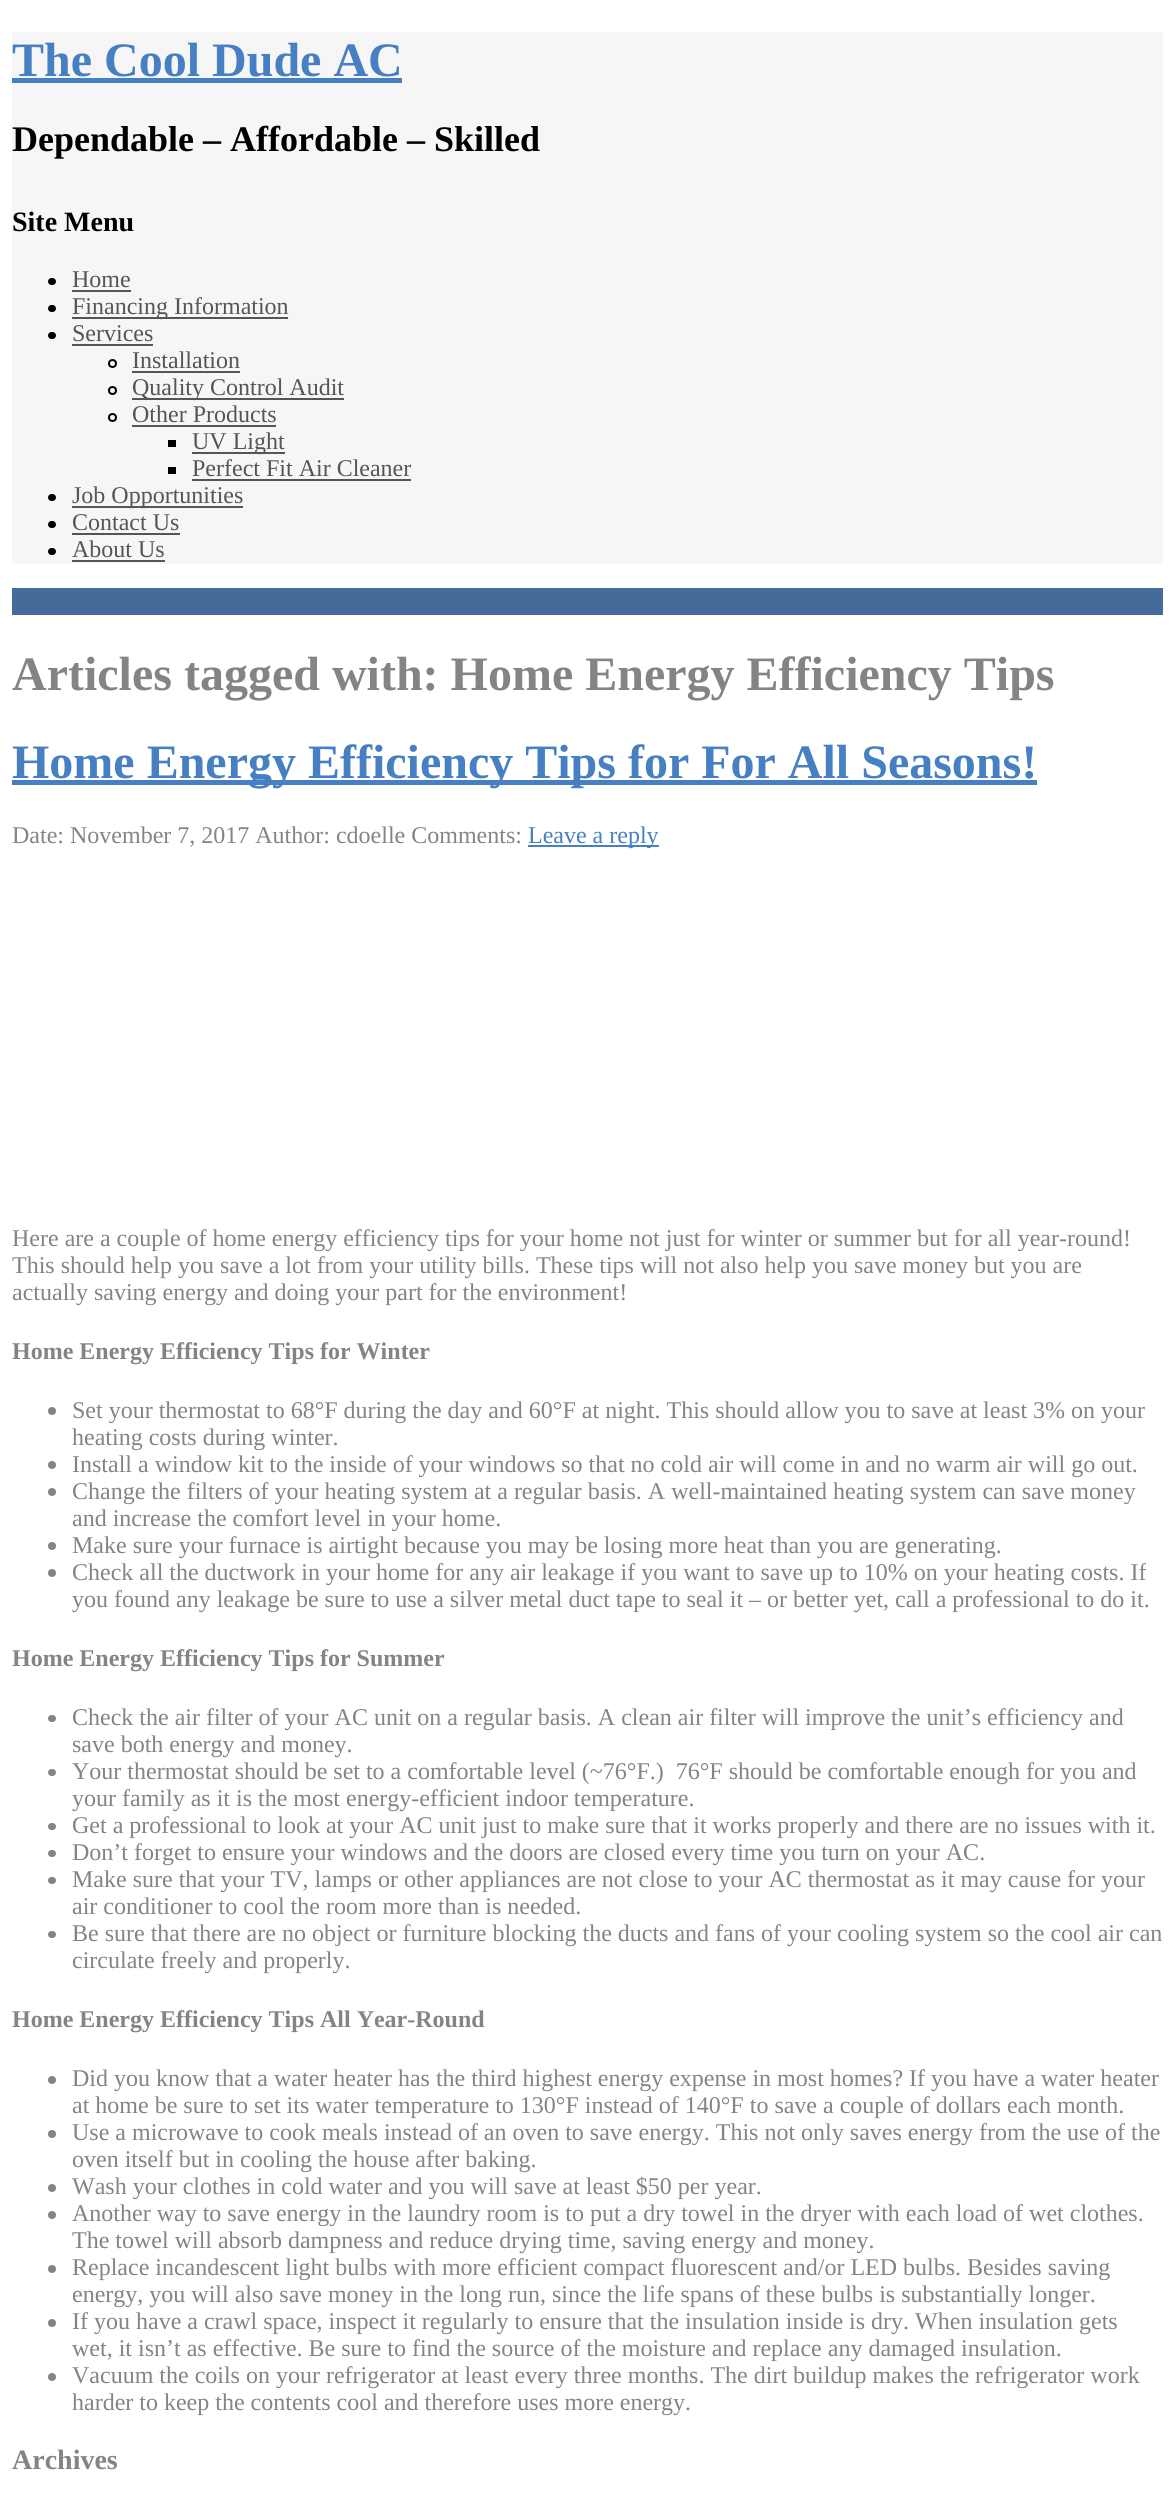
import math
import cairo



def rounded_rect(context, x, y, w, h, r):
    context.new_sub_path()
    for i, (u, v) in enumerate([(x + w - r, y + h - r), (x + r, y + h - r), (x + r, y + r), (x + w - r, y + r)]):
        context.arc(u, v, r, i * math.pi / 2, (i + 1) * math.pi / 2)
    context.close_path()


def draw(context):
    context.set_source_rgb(1, 1, 1)
    context.paint()
    context.set_source_rgb(246 / 255, 246 / 255, 246 / 255)
    context.rectangle(12, 32, 1151, 532)
    context.fill()
    context.set_source_rgb(70 / 255, 127 / 255, 194 / 255)
    context.rectangle(12, 78, 390, 5)
    context.fill()
    context.set_source_rgb(0, 0, 0)
    rounded_rect(context, 48, 278, 8, 7, 3.5)
    context.fill()
    context.set_source_rgb(85 / 255, 85 / 255, 85 / 255)
    context.rectangle(72, 290, 59, 2)
    context.fill()
    context.set_source_rgb(0, 0, 0)
    rounded_rect(context, 48, 305, 8, 7, 3.5)
    context.fill()
    context.set_source_rgb(85 / 255, 85 / 255, 85 / 255)
    context.rectangle(72, 317, 216, 2)
    context.fill()
    context.set_source_rgb(0, 0, 0)
    rounded_rect(context, 48, 332, 8, 7, 3.5)
    context.fill()
    context.set_source_rgb(85 / 255, 85 / 255, 85 / 255)
    context.rectangle(72, 344, 81, 2)
    context.fill()
    context.arc(112.5, 363.5, 3.5, 0, 2 * math.pi)
    context.set_source_rgb(0, 0, 0)
    context.stroke()
    context.set_source_rgb(85 / 255, 85 / 255, 85 / 255)
    context.rectangle(132, 371, 108, 2)
    context.fill()
    context.arc(112.5, 390.5, 3.5, 0, 2 * math.pi)
    context.set_source_rgb(0, 0, 0)
    context.stroke()
    context.set_source_rgb(85 / 255, 85 / 255, 85 / 255)
    context.rectangle(132, 398, 212, 2)
    context.fill()
    context.arc(112.5, 417.5, 3.5, 0, 2 * math.pi)
    context.set_source_rgb(0, 0, 0)
    context.stroke()
    context.set_source_rgb(85 / 255, 85 / 255, 85 / 255)
    context.rectangle(132, 425, 144, 2)
    context.fill()
    context.set_source_rgb(0, 0, 0)
    context.rectangle(168, 440, 8, 7)
    context.fill()
    context.set_source_rgb(85 / 255, 85 / 255, 85 / 255)
    context.rectangle(192, 452, 93, 2)
    context.fill()
    context.set_source_rgb(0, 0, 0)
    context.rectangle(168, 467, 8, 7)
    context.fill()
    context.set_source_rgb(85 / 255, 85 / 255, 85 / 255)
    context.rectangle(192, 479, 219, 2)
    context.fill()
    context.set_source_rgb(0, 0, 0)
    rounded_rect(context, 48, 494, 8, 7, 3.5)
    context.fill()
    context.set_source_rgb(85 / 255, 85 / 255, 85 / 255)
    context.rectangle(72, 506, 171, 2)
    context.fill()
    context.set_source_rgb(0, 0, 0)
    rounded_rect(context, 48, 521, 8, 7, 3.5)
    context.fill()
    context.set_source_rgb(85 / 255, 85 / 255, 85 / 255)
    context.rectangle(72, 533, 108, 2)
    context.fill()
    context.set_source_rgb(0, 0, 0)
    rounded_rect(context, 48, 548, 8, 7, 3.5)
    context.fill()
    context.set_source_rgb(85 / 255, 85 / 255, 85 / 255)
    context.rectangle(72, 560, 93, 2)
    context.fill()
    context.set_source_rgb(68 / 255, 107 / 255, 154 / 255)
    context.rectangle(12, 588, 1151, 27)
    context.fill()
    context.set_source_rgb(70 / 255, 127 / 255, 194 / 255)
    context.rectangle(12, 780, 1025, 5)
    context.fill()
    context.rectangle(528, 845, 131, 2)
    context.fill()
    context.set_source_rgb(132 / 255, 132 / 255, 132 / 255)
    context.arc(52, 1411, 4, 0, 2 * math.pi)
    context.fill()
    context.arc(52, 1465, 4, 0, 2 * math.pi)
    context.fill()
    context.arc(52, 1492, 4, 0, 2 * math.pi)
    context.fill()
    context.arc(52, 1546, 4, 0, 2 * math.pi)
    context.fill()
    context.arc(52, 1573, 4, 0, 2 * math.pi)
    context.fill()
    rounded_rect(context, 48, 1715, 8, 7, 3.5)
    context.fill()
    rounded_rect(context, 48, 1769, 8, 7, 3.5)
    context.fill()
    rounded_rect(context, 48, 1823, 8, 7, 3.5)
    context.fill()
    rounded_rect(context, 48, 1850, 8, 7, 3.5)
    context.fill()
    rounded_rect(context, 48, 1877, 8, 7, 3.5)
    context.fill()
    rounded_rect(context, 48, 1931, 8, 7, 3.5)
    context.fill()
    context.arc(52, 2080, 4, 0, 2 * math.pi)
    context.fill()
    context.arc(52, 2134, 4, 0, 2 * math.pi)
    context.fill()
    context.arc(52, 2188, 4, 0, 2 * math.pi)
    context.fill()
    context.arc(52, 2215, 4, 0, 2 * math.pi)
    context.fill()
    context.arc(52, 2269, 4, 0, 2 * math.pi)
    context.fill()
    context.arc(52, 2323, 4, 0, 2 * math.pi)
    context.fill()
    context.arc(52, 2377, 4, 0, 2 * math.pi)
    context.fill()
    context.select_font_face("Liberation Serif", cairo.FontSlant.NORMAL, cairo.FontWeight.BOLD)
    context.set_font_size(48)
    context.set_source_rgb(70 / 255, 127 / 255, 194 / 255)
    context.move_to(12, 76)
    context.show_text("The Cool Dude AC")
    context.set_font_size(36)
    context.set_source_rgb(0, 0, 0)
    context.move_to(12, 151)
    context.show_text("Dependable – Affordable – Skilled")
    context.set_font_size(28)
    context.move_to(12, 231)
    context.show_text("Site Menu")
    context.select_font_face("Liberation Serif")
    context.set_font_size(24)
    context.set_source_rgb(85 / 255, 85 / 255, 85 / 255)
    context.move_to(72, 287)
    context.show_text("Home")
    context.move_to(72, 314)
    context.show_text("Financing Information")
    context.move_to(72, 341)
    context.show_text("Services")
    context.move_to(132, 368)
    context.show_text("Installation")
    context.move_to(132, 395)
    context.show_text("Quality Control Audit")
    context.move_to(132, 422)
    context.show_text("Other Products")
    context.move_to(192, 449)
    context.show_text("UV Light")
    context.move_to(192, 476)
    context.show_text("Perfect Fit Air Cleaner")
    context.move_to(72, 503)
    context.show_text("Job Opportunities")
    context.move_to(72, 530)
    context.show_text("Contact Us")
    context.move_to(72, 557)
    context.show_text("About Us")
    context.select_font_face("Liberation Serif", cairo.FontSlant.NORMAL, cairo.FontWeight.BOLD)
    context.set_font_size(48)
    context.set_source_rgb(132 / 255, 132 / 255, 132 / 255)
    context.move_to(12, 690)
    context.show_text("Articles tagged with: Home Energy Efficiency Tips")
    context.set_source_rgb(70 / 255, 127 / 255, 194 / 255)
    context.move_to(12, 778)
    context.show_text("Home Energy Efficiency Tips for For All Seasons!")
    context.select_font_face("Liberation Serif")
    context.set_font_size(24)
    context.set_source_rgb(132 / 255, 132 / 255, 132 / 255)
    context.move_to(12, 843)
    context.show_text("Date: November 7, 2017 Author: cdoelle Comments:")
    context.set_source_rgb(70 / 255, 127 / 255, 194 / 255)
    context.move_to(528, 843)
    context.show_text("Leave a reply")
    context.set_source_rgb(132 / 255, 132 / 255, 132 / 255)
    context.move_to(12, 1246)
    context.show_text("Here are a couple of home energy efficiency tips for your home not just for winter or summer but for all year-round!")
    context.move_to(12, 1273)
    context.show_text("This should help you save a lot from your utility bills. These tips will not also help you save money but you are")
    context.move_to(12, 1300)
    context.show_text("actually saving energy and doing your part for the environment!")
    context.select_font_face("Liberation Serif", cairo.FontSlant.NORMAL, cairo.FontWeight.BOLD)
    context.move_to(12, 1359)
    context.show_text("Home Energy Efficiency Tips for Winter")
    context.select_font_face("Liberation Serif")
    context.move_to(72, 1418)
    context.show_text("Set your thermostat to 68°F during the day and 60°F at night. This should allow you to save at least 3% on your")
    context.move_to(72, 1445)
    context.show_text("heating costs during winter.")
    context.move_to(72, 1472)
    context.show_text("Install a window kit to the inside of your windows so that no cold air will come in and no warm air will go out.")
    context.move_to(72, 1499)
    context.show_text("Change the filters of your heating system at a regular basis. A well-maintained heating system can save money")
    context.move_to(72, 1526)
    context.show_text("and increase the comfort level in your home.")
    context.move_to(72, 1553)
    context.show_text("Make sure your furnace is airtight because you may be losing more heat than you are generating.")
    context.move_to(72, 1580)
    context.show_text("Check all the ductwork in your home for any air leakage if you want to save up to 10% on your heating costs. If")
    context.move_to(72, 1607)
    context.show_text("you found any leakage be sure to use a silver metal duct tape to seal it – or better yet, call a professional to do it.")
    context.select_font_face("Liberation Serif", cairo.FontSlant.NORMAL, cairo.FontWeight.BOLD)
    context.move_to(12, 1666)
    context.show_text("Home Energy Efficiency Tips for Summer")
    context.select_font_face("Liberation Serif")
    context.move_to(72, 1725)
    context.show_text("Check the air filter of your AC unit on a regular basis. A clean air filter will improve the unit’s efficiency and")
    context.move_to(72, 1752)
    context.show_text("save both energy and money.")
    context.move_to(72, 1779)
    context.show_text("Your thermostat should be set to a comfortable level (~76°F.)  76°F should be comfortable enough for you and")
    context.move_to(72, 1806)
    context.show_text("your family as it is the most energy-efficient indoor temperature.")
    context.move_to(72, 1833)
    context.show_text("Get a professional to look at your AC unit just to make sure that it works properly and there are no issues with it.")
    context.move_to(72, 1860)
    context.show_text("Don’t forget to ensure your windows and the doors are closed every time you turn on your AC.")
    context.move_to(72, 1887)
    context.show_text("Make sure that your TV, lamps or other appliances are not close to your AC thermostat as it may cause for your")
    context.move_to(72, 1914)
    context.show_text("air conditioner to cool the room more than is needed.")
    context.move_to(72, 1941)
    context.show_text("Be sure that there are no object or furniture blocking the ducts and fans of your cooling system so the cool air can")
    context.move_to(72, 1968)
    context.show_text("circulate freely and properly.")
    context.select_font_face("Liberation Serif", cairo.FontSlant.NORMAL, cairo.FontWeight.BOLD)
    context.move_to(12, 2027)
    context.show_text("Home Energy Efficiency Tips All Year-Round")
    context.select_font_face("Liberation Serif")
    context.move_to(72, 2086)
    context.show_text("Did you know that a water heater has the third highest energy expense in most homes? If you have a water heater")
    context.move_to(72, 2113)
    context.show_text("at home be sure to set its water temperature to 130°F instead of 140°F to save a couple of dollars each month.")
    context.move_to(72, 2140)
    context.show_text("Use a microwave to cook meals instead of an oven to save energy. This not only saves energy from the use of the")
    context.move_to(72, 2167)
    context.show_text("oven itself but in cooling the house after baking.")
    context.move_to(72, 2194)
    context.show_text("Wash your clothes in cold water and you will save at least $50 per year.")
    context.move_to(72, 2221)
    context.show_text("Another way to save energy in the laundry room is to put a dry towel in the dryer with each load of wet clothes.")
    context.move_to(72, 2248)
    context.show_text("The towel will absorb dampness and reduce drying time, saving energy and money.")
    context.move_to(72, 2275)
    context.show_text("Replace incandescent light bulbs with more efficient compact fluorescent and/or LED bulbs. Besides saving")
    context.move_to(72, 2302)
    context.show_text("energy, you will also save money in the long run, since the life spans of these bulbs is substantially longer.")
    context.move_to(72, 2329)
    context.show_text("If you have a crawl space, inspect it regularly to ensure that the insulation inside is dry. When insulation gets")
    context.move_to(72, 2356)
    context.show_text("wet, it isn’t as effective. Be sure to find the source of the moisture and replace any damaged insulation.")
    context.move_to(72, 2383)
    context.show_text("Vacuum the coils on your refrigerator at least every three months. The dirt buildup makes the refrigerator work")
    context.move_to(72, 2410)
    context.show_text("harder to keep the contents cool and therefore uses more energy.")
    context.select_font_face("Liberation Serif", cairo.FontSlant.NORMAL, cairo.FontWeight.BOLD)
    context.set_font_size(28)
    context.move_to(12, 2469)
    context.show_text("Archives")


surface = cairo.ImageSurface(cairo.Format.RGB24, 1174, 2499)
context = cairo.Context(surface)
options = cairo.FontOptions()
options.set_hint_metrics(cairo.HintMetrics.OFF)
options.set_hint_style(cairo.HintStyle.NONE)
context.set_font_options(options)
context.set_miter_limit(4)
draw(context)
surface.write_to_png("out.png")
